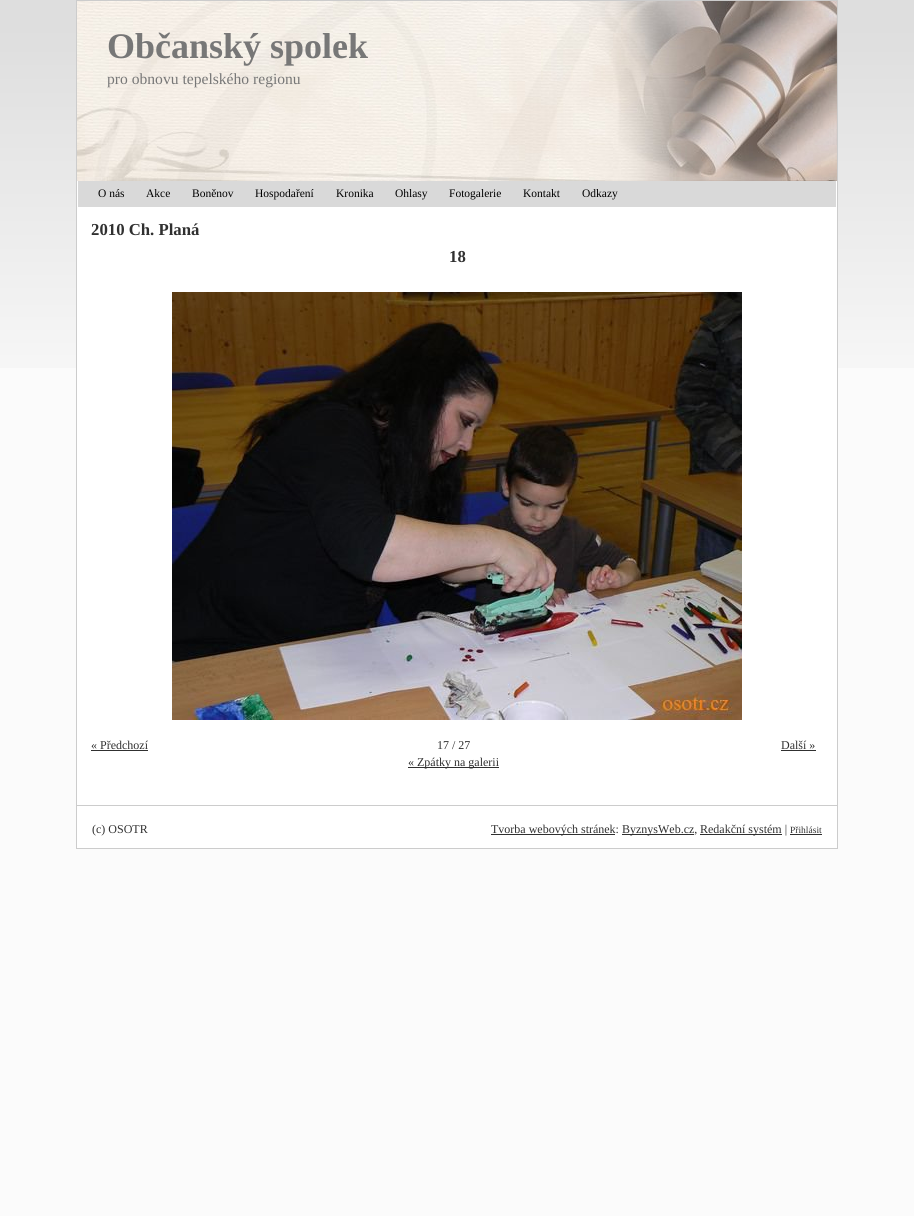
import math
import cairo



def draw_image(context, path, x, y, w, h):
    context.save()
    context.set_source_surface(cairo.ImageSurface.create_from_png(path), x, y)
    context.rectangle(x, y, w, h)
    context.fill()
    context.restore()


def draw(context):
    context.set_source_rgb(251 / 255, 251 / 255, 251 / 255)
    context.paint()
    draw_image(context, "images/1.png", 0, 0, 914, 368)
    context.rectangle(76.5, 0.5, 761, 848)
    context.set_source_rgb(204 / 255, 204 / 255, 204 / 255)
    context.set_line_width(1)
    context.stroke()
    draw_image(context, "images/2.png", 77, 1, 760, 180)
    context.set_source_rgb(1, 1, 1)
    context.rectangle(77, 181, 760, 624)
    context.fill()
    context.set_source_rgb(217 / 255, 217 / 255, 217 / 255)
    context.rectangle(78, 181, 758, 26)
    context.fill()
    draw_image(context, "images/3.png", 172, 292, 570, 428)
    context.set_source_rgb(48 / 255, 48 / 255, 48 / 255)
    context.rectangle(91, 750, 57, 1)
    context.fill()
    context.rectangle(781, 750, 35, 1)
    context.fill()
    context.rectangle(408, 767, 91, 1)
    context.fill()
    context.set_source_rgb(1, 1, 1)
    context.rectangle(77, 806, 760, 42)
    context.fill()
    context.set_source_rgb(204 / 255, 204 / 255, 204 / 255)
    context.rectangle(77, 805, 760, 1)
    context.fill()
    context.set_source_rgb(48 / 255, 48 / 255, 48 / 255)
    context.rectangle(491, 834, 124, 1)
    context.fill()
    context.rectangle(622, 834, 72, 1)
    context.fill()
    context.rectangle(700, 834, 82, 1)
    context.fill()
    context.rectangle(790, 834, 32, 1)
    context.fill()
    context.select_font_face("Liberation Serif", cairo.FontSlant.NORMAL, cairo.FontWeight.BOLD)
    context.set_font_size(36)
    context.set_source_rgb(119 / 255, 119 / 255, 119 / 255)
    context.move_to(107, 58)
    context.show_text("Občanský spolek")
    context.select_font_face("Liberation Serif")
    context.set_font_size(15.6)
    context.move_to(107, 84)
    context.show_text("pro obnovu tepelského regionu")
    context.set_font_size(11.5)
    context.set_source_rgb(0, 0, 0)
    context.move_to(98, 197)
    context.show_text("O nás")
    context.move_to(146, 197)
    context.show_text("Akce")
    context.move_to(192, 197)
    context.show_text("Boněnov")
    context.move_to(255, 197)
    context.show_text("Hospodaření")
    context.move_to(336, 197)
    context.show_text("Kronika")
    context.move_to(395, 197)
    context.show_text("Ohlasy")
    context.move_to(449, 197)
    context.show_text("Fotogalerie")
    context.move_to(523, 197)
    context.show_text("Kontakt")
    context.move_to(582, 197)
    context.show_text("Odkazy")
    context.select_font_face("Liberation Serif", cairo.FontSlant.NORMAL, cairo.FontWeight.BOLD)
    context.set_font_size(16.75)
    context.set_source_rgb(48 / 255, 48 / 255, 48 / 255)
    context.move_to(91, 235)
    context.show_text("2010 Ch. Planá")
    context.move_to(449, 262)
    context.show_text("18")
    context.select_font_face("Liberation Serif")
    context.set_font_size(12)
    context.move_to(91, 749)
    context.show_text("« Předchozí")
    context.move_to(437, 749)
    context.show_text("17 / 27")
    context.move_to(781, 749)
    context.show_text("Další »")
    context.move_to(408, 766)
    context.show_text("« Zpátky na galerii")
    context.move_to(92, 833)
    context.show_text("(c) OSOTR")
    context.move_to(491, 833)
    context.show_text("Tvorba webových stránek:")
    context.move_to(622, 833)
    context.show_text("ByznysWeb.cz,")
    context.move_to(700, 833)
    context.show_text("Redakční systém |")
    context.set_font_size(9.5)
    context.move_to(790, 833)
    context.show_text("Přihlásit")


surface = cairo.ImageSurface(cairo.Format.RGB24, 914, 1216)
context = cairo.Context(surface)
options = cairo.FontOptions()
options.set_hint_metrics(cairo.HintMetrics.OFF)
options.set_hint_style(cairo.HintStyle.NONE)
context.set_font_options(options)
context.set_miter_limit(4)
draw(context)
surface.write_to_png("out.png")
